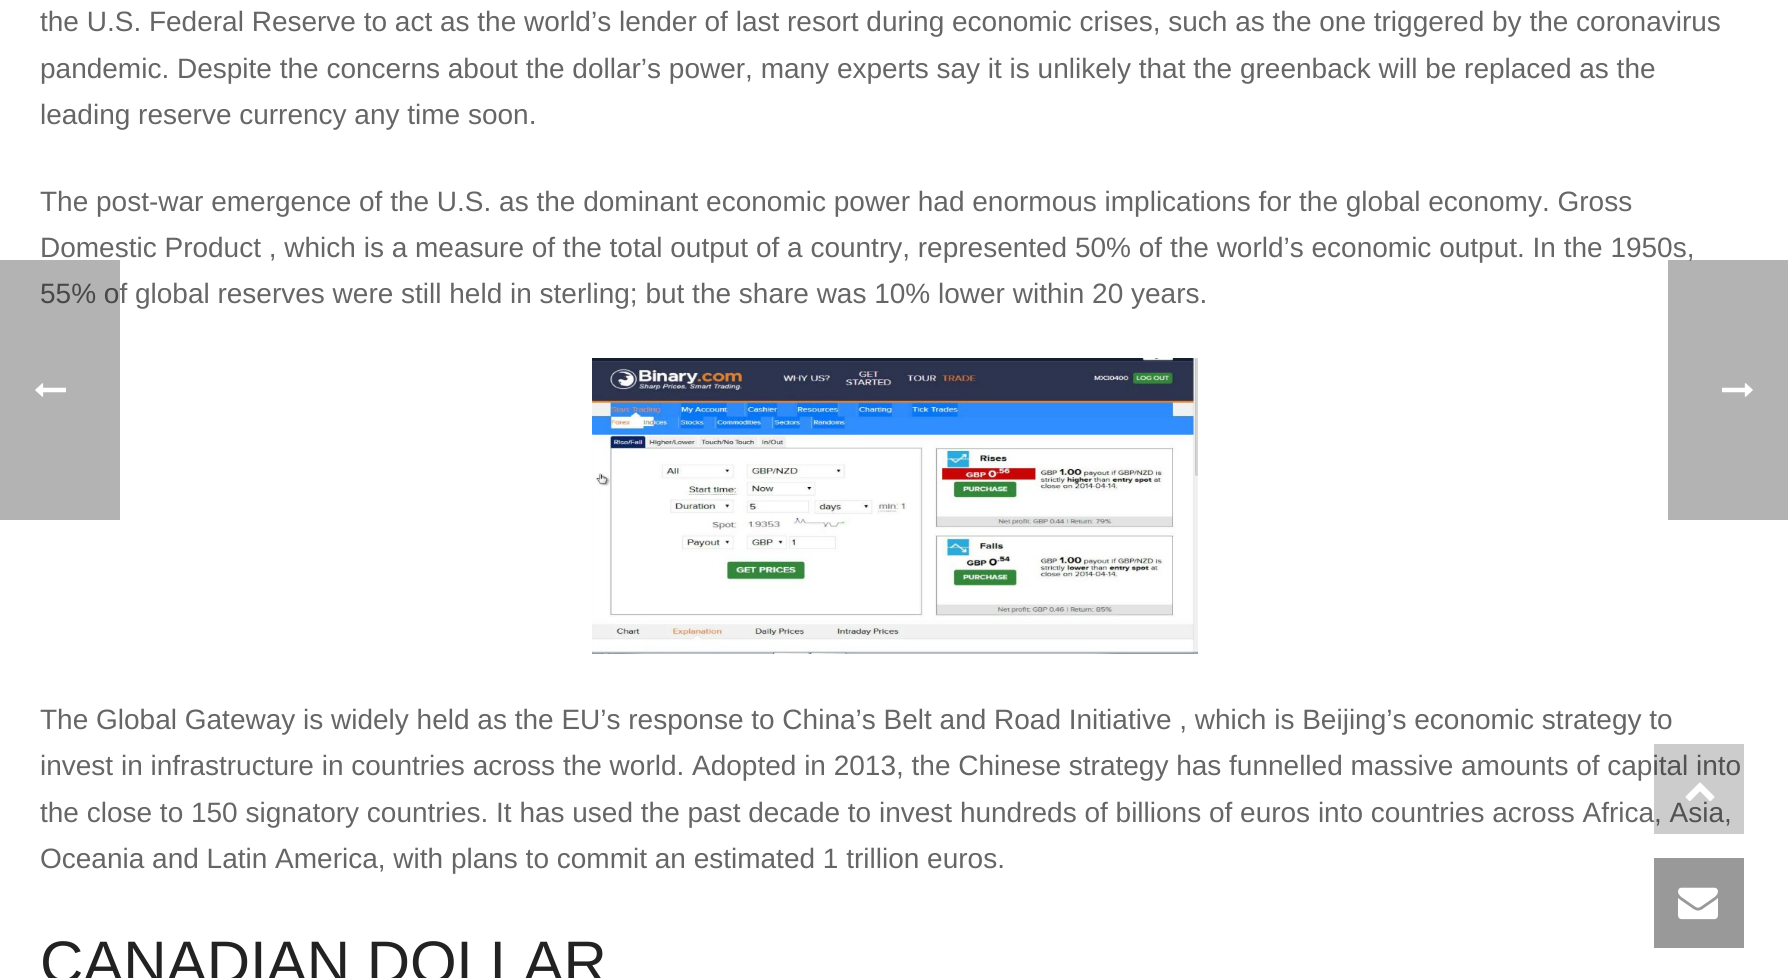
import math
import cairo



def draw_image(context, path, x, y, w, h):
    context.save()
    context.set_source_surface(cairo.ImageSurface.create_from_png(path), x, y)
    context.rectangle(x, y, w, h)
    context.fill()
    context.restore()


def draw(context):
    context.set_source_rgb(1, 1, 1)
    context.paint()
    draw_image(context, "images/1.png", 592, 358, 606, 296)
    context.set_source_rgb(153 / 255, 153 / 255, 153 / 255)
    context.rectangle(1654, 858, 90, 90)
    context.fill()
    draw_image(context, "images/5.png", 1678, 887, 40, 33)
    context.select_font_face("Liberation Sans")
    context.set_font_size(28)
    context.set_source_rgb(102 / 255, 102 / 255, 102 / 255)
    context.move_to(40, 31)
    context.show_text("the U.S. Federal Reserve to act as the world’s lender of last resort during economic crises, such as the one triggered by the coronavirus")
    context.move_to(40, 78)
    context.show_text("pandemic. Despite the concerns about the dollar’s power, many experts say it is unlikely that the greenback will be replaced as the")
    context.move_to(40, 124)
    context.show_text("leading reserve currency any time soon.")
    context.move_to(40, 211)
    context.show_text("The post-war emergence of the U.S. as the dominant economic power had enormous implications for the global economy. Gross")
    context.move_to(40, 257)
    context.show_text("Domestic Product , which is a measure of the total output of a country, represented 50% of the world’s economic output. In the 1950s,")
    context.move_to(40, 303)
    context.show_text("55% of global reserves were still held in sterling; but the share was 10% lower within 20 years.")
    context.move_to(40, 729)
    context.show_text("The Global Gateway is widely held as the EU’s response to China’s Belt and Road Initiative , which is Beijing’s economic strategy to")
    context.move_to(40, 775)
    context.show_text("invest in infrastructure in countries across the world. Adopted in 2013, the Chinese strategy has funnelled massive amounts of capital into")
    context.move_to(40, 822)
    context.show_text("the close to 150 signatory countries. It has used the past decade to invest hundreds of billions of euros into countries across Africa, Asia,")
    context.move_to(40, 868)
    context.show_text("Oceania and Latin America, with plans to commit an estimated 1 trillion euros.")
    context.set_font_size(60)
    context.set_source_rgb(34 / 255, 34 / 255, 34 / 255)
    context.move_to(40, 983)
    context.show_text("CANADIAN DOLLAR")
    context.set_source_rgba(0, 0, 0, 0.3)
    context.rectangle(0, 260, 120, 260)
    context.fill()
    draw_image(context, "images/2.png", 35, 383, 31, 14)
    context.rectangle(1668, 260, 120, 260)
    context.fill()
    draw_image(context, "images/3.png", 1722, 383, 31, 14)
    context.set_source_rgba(0, 0, 0, 0.2)
    context.rectangle(1654, 744, 90, 90)
    context.fill()
    draw_image(context, "images/4.png", 1685, 782, 30, 19)


surface = cairo.ImageSurface(cairo.Format.RGB24, 1788, 978)
context = cairo.Context(surface)
options = cairo.FontOptions()
options.set_hint_metrics(cairo.HintMetrics.OFF)
options.set_hint_style(cairo.HintStyle.NONE)
context.set_font_options(options)
context.set_miter_limit(4)
draw(context)
surface.write_to_png("out.png")
